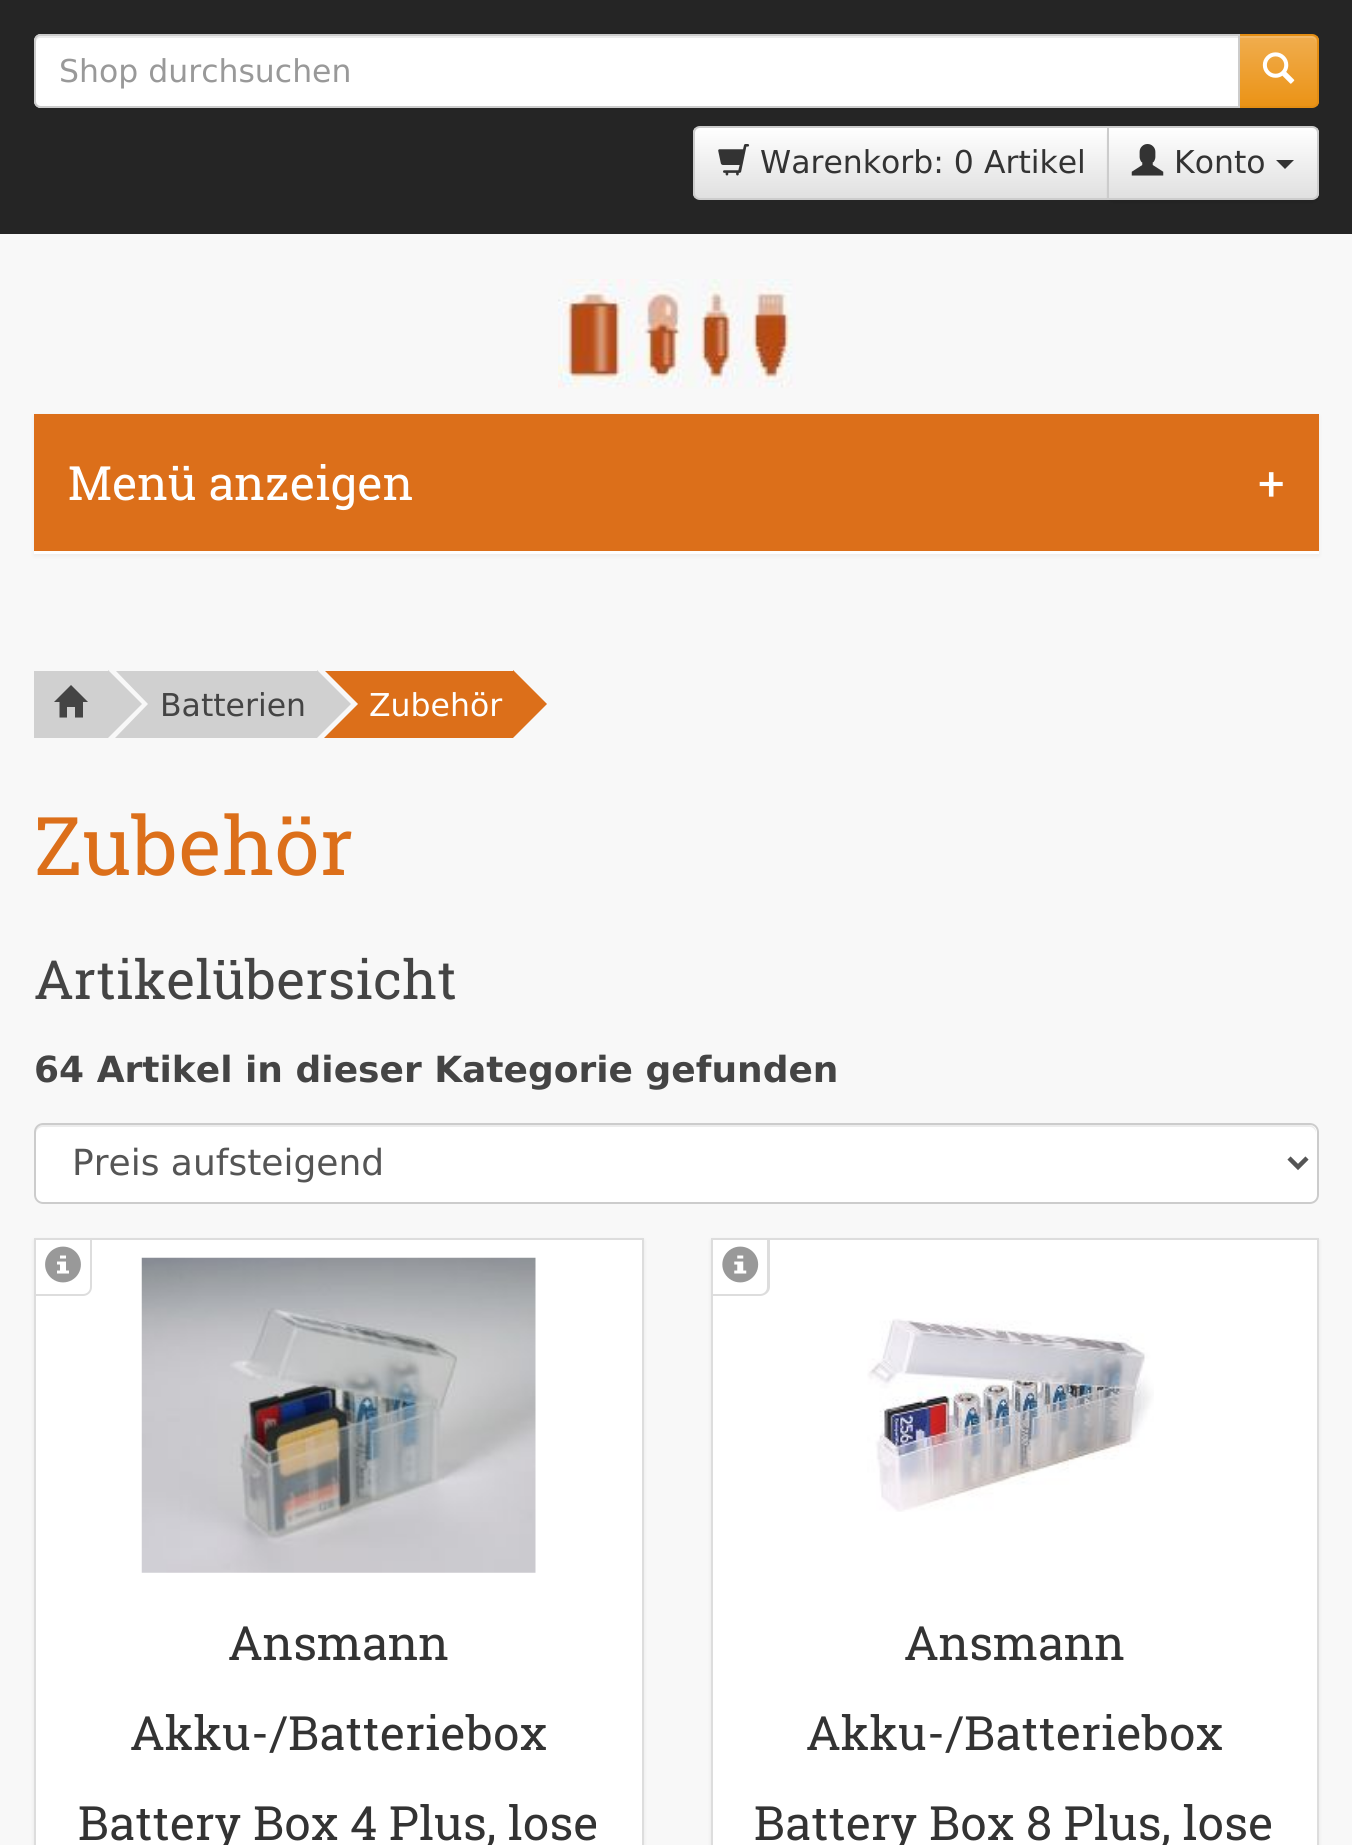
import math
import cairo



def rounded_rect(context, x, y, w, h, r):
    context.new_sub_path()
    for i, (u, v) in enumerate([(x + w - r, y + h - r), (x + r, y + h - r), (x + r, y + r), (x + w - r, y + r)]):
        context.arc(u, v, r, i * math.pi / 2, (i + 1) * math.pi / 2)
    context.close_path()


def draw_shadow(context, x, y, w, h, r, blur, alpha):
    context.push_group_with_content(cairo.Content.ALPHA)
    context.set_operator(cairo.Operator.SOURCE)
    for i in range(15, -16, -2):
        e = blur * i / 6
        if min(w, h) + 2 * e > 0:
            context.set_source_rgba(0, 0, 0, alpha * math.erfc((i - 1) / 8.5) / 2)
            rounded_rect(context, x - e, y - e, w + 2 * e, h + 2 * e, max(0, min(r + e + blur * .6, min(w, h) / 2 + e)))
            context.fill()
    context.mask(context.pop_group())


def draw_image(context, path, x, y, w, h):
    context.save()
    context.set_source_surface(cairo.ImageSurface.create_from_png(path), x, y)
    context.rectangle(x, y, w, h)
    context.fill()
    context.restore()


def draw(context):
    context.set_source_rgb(248 / 255, 248 / 255, 248 / 255)
    context.paint()
    context.set_source_rgb(37 / 255, 37 / 255, 37 / 255)
    context.rectangle(0, 0, 1352, 234)
    context.fill()
    context.save()
    context.new_path()
    context.move_to(1238, 34)
    context.line_to(1312, 34)
    context.curve_to(1316, 34, 1319, 37, 1319, 41)
    context.line_to(1319, 101)
    context.curve_to(1319, 105, 1316, 108, 1312, 108)
    context.line_to(1238, 108)
    context.close_path()
    context.clip()
    gradient = cairo.LinearGradient(1278, 36, 1278, 106)
    gradient.add_color_stop_rgba(0, 240 / 255, 173 / 255, 78 / 255, 1)
    gradient.add_color_stop_rgba(1, 235 / 255, 147 / 255, 22 / 255, 1)
    context.set_source(gradient)
    context.rectangle(1240, 36, 79, 70)
    context.fill()
    context.restore()
    context.set_source_rgba(1, 1, 1, 0.15)
    context.new_path()
    context.move_to(1240, 38)
    context.line_to(1312, 38)
    context.curve_to(1314, 38, 1316, 40, 1316, 43)
    context.line_to(1316, 41)
    context.curve_to(1316, 38, 1314, 36, 1311, 36)
    context.line_to(1240, 36)
    context.close_path()
    context.fill()
    context.new_path()
    context.move_to(1239, 35)
    context.line_to(1312, 35)
    context.curve_to(1315.5, 35, 1318, 37.5, 1318, 41)
    context.line_to(1318, 101)
    context.curve_to(1318, 104.5, 1315.5, 107, 1312, 107)
    context.line_to(1239, 107)
    context.close_path()
    context.set_source_rgb(227 / 255, 141 / 255, 19 / 255)
    context.stroke()
    context.set_source_rgb(1, 1, 1)
    context.new_path()
    context.move_to(41, 34)
    context.line_to(1240, 34)
    context.line_to(1240, 108)
    context.line_to(41, 108)
    context.curve_to(37, 108, 34, 105, 34, 101)
    context.line_to(34, 41)
    context.curve_to(34, 37, 37, 34, 41, 34)
    context.close_path()
    context.fill()
    context.set_source_rgb(236 / 255, 236 / 255, 236 / 255)
    context.new_path()
    context.move_to(40, 38)
    context.line_to(1238, 38)
    context.line_to(1238, 36)
    context.line_to(41, 36)
    context.curve_to(38, 36, 36, 38, 36, 41)
    context.line_to(36, 43)
    context.curve_to(36, 40, 38, 38, 40, 38)
    context.close_path()
    context.fill()
    context.new_path()
    context.move_to(41, 35)
    context.line_to(1239, 35)
    context.line_to(1239, 107)
    context.line_to(41, 107)
    context.curve_to(37.5, 107, 35, 104.5, 35, 101)
    context.line_to(35, 41)
    context.curve_to(35, 37.5, 37.5, 35, 41, 35)
    context.close_path()
    context.set_source_rgb(204 / 255, 204 / 255, 204 / 255)
    context.stroke()
    draw_image(context, "images/1.png", 1262, 52, 33, 32)
    context.save()
    context.new_path()
    context.move_to(700, 126)
    context.line_to(1109, 126)
    context.line_to(1109, 200)
    context.line_to(700, 200)
    context.curve_to(696, 200, 693, 197, 693, 193)
    context.line_to(693, 133)
    context.curve_to(693, 129, 696, 126, 700, 126)
    context.close_path()
    context.clip()
    gradient = cairo.LinearGradient(901, 128, 901, 198)
    gradient.add_color_stop_rgba(0, 1, 1, 1, 1)
    gradient.add_color_stop_rgba(1, 224 / 255, 224 / 255, 224 / 255, 1)
    context.set_source(gradient)
    context.rectangle(693, 128, 414, 70)
    context.fill()
    context.restore()
    context.new_path()
    context.move_to(700, 127)
    context.line_to(1108, 127)
    context.line_to(1108, 199)
    context.line_to(700, 199)
    context.curve_to(696.5, 199, 694, 196.5, 694, 193)
    context.line_to(694, 133)
    context.curve_to(694, 129.5, 696.5, 127, 700, 127)
    context.close_path()
    context.stroke()
    draw_image(context, "images/2.png", 718, 144, 32, 32)
    context.set_source_rgb(0, 0, 0)
    draw_shadow(context, 1107, 128, 212, 75, 7, 1, 0.07)
    context.save()
    context.new_path()
    context.move_to(1107, 126)
    context.line_to(1312, 126)
    context.curve_to(1316, 126, 1319, 129, 1319, 133)
    context.line_to(1319, 193)
    context.curve_to(1319, 197, 1316, 200, 1312, 200)
    context.line_to(1107, 200)
    context.close_path()
    context.clip()
    gradient = cairo.LinearGradient(1213, 128, 1213, 198)
    gradient.add_color_stop_rgba(0, 1, 1, 1, 1)
    gradient.add_color_stop_rgba(1, 224 / 255, 224 / 255, 224 / 255, 1)
    context.set_source(gradient)
    context.rectangle(1109, 128, 210, 70)
    context.fill()
    context.restore()
    context.new_path()
    context.move_to(1108, 127)
    context.line_to(1312, 127)
    context.curve_to(1315.5, 127, 1318, 129.5, 1318, 133)
    context.line_to(1318, 193)
    context.curve_to(1318, 196.5, 1315.5, 199, 1312, 199)
    context.line_to(1108, 199)
    context.close_path()
    context.set_source_rgb(204 / 255, 204 / 255, 204 / 255)
    context.stroke()
    draw_image(context, "images/3.png", 1131, 144, 33, 32)
    context.set_source_rgb(51 / 255, 51 / 255, 51 / 255)
    context.new_path()
    context.move_to(1276, 160)
    context.line_to(1294, 160)
    context.line_to(1285, 169)
    context.close_path()
    context.fill()
    draw_image(context, "images/4.png", 558, 279, 238, 110)
    context.set_source_rgb(0, 0, 0)
    draw_shadow(context, 34, 416, 1285, 140, 0, 2, 0.05)
    context.set_source_rgb(1, 1, 1)
    context.rectangle(34, 551, 1285, 3)
    context.fill()
    context.set_source_rgb(220 / 255, 111 / 255, 26 / 255)
    context.rectangle(34, 414, 1285, 137)
    context.fill()
    context.set_source_rgb(208 / 255, 208 / 255, 208 / 255)
    context.rectangle(34, 671, 74, 67)
    context.fill()
    context.set_source_rgb(68 / 255, 68 / 255, 68 / 255)
    context.new_path()
    context.move_to(54, 702)
    context.line_to(71, 685)
    context.line_to(88, 702)
    context.line_to(83, 702)
    context.line_to(83, 717.5)
    context.line_to(75, 717.5)
    context.line_to(75, 707)
    context.line_to(67, 707)
    context.line_to(67, 717.5)
    context.line_to(59.5, 717.5)
    context.line_to(59.5, 702)
    context.close_path()
    context.fill()
    context.set_source_rgb(208 / 255, 208 / 255, 208 / 255)
    context.rectangle(115, 671, 202, 67)
    context.fill()
    context.set_source_rgb(248 / 255, 248 / 255, 248 / 255)
    context.new_path()
    context.move_to(115, 738)
    context.line_to(115, 670)
    context.line_to(148, 704)
    context.close_path()
    context.fill()
    context.set_source_rgb(208 / 255, 208 / 255, 208 / 255)
    context.new_path()
    context.move_to(108, 738)
    context.line_to(108, 670)
    context.line_to(142, 704)
    context.close_path()
    context.fill()
    context.set_source_rgb(220 / 255, 111 / 255, 26 / 255)
    context.rectangle(324, 671, 189, 67)
    context.fill()
    context.set_source_rgb(248 / 255, 248 / 255, 248 / 255)
    context.new_path()
    context.move_to(324, 738)
    context.line_to(324, 670)
    context.line_to(358, 704)
    context.close_path()
    context.fill()
    context.set_source_rgb(208 / 255, 208 / 255, 208 / 255)
    context.new_path()
    context.move_to(317, 738)
    context.line_to(317, 670)
    context.line_to(351, 704)
    context.close_path()
    context.fill()
    context.set_source_rgb(220 / 255, 111 / 255, 26 / 255)
    context.new_path()
    context.move_to(513, 738)
    context.line_to(513, 670)
    context.line_to(547, 704)
    context.close_path()
    context.fill()
    context.set_source_rgb(1, 1, 1)
    rounded_rect(context, 34, 1123, 1285, 81, 9)
    context.fill()
    context.set_source_rgb(236 / 255, 236 / 255, 236 / 255)
    context.new_path()
    context.move_to(43, 1127)
    context.line_to(1310, 1127)
    context.curve_to(1313, 1127, 1316, 1130, 1316, 1134)
    context.line_to(1316, 1132)
    context.curve_to(1316, 1128, 1313, 1125, 1309, 1125)
    context.line_to(43, 1125)
    context.curve_to(39, 1125, 36, 1128, 36, 1132)
    context.line_to(36, 1134)
    context.curve_to(36, 1130, 39, 1127, 43, 1127)
    context.close_path()
    context.fill()
    rounded_rect(context, 35, 1124, 1283, 79, 8)
    context.set_source_rgb(204 / 255, 204 / 255, 204 / 255)
    context.stroke()
    context.new_path()
    context.move_to(1289, 1158)
    context.line_to(1298, 1167)
    context.line_to(1307, 1158)
    context.set_source_rgb(85 / 255, 85 / 255, 85 / 255)
    context.set_line_width(4.5)
    context.stroke()
    context.set_source_rgb(0, 0, 0)
    draw_shadow(context, 34, 1240, 610, 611, 0, 2, 0.07)
    context.set_source_rgb(1, 1, 1)
    context.rectangle(35, 1239, 608, 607)
    context.fill_preserve()
    context.set_source_rgb(221 / 255, 221 / 255, 221 / 255)
    context.set_line_width(2)
    context.stroke()
    context.set_fill_rule(cairo.FillRule.EVEN_ODD)
    context.new_path()
    context.move_to(36, 1240)
    context.line_to(92, 1240)
    context.line_to(92, 1287)
    context.curve_to(92, 1292, 88, 1296, 83, 1296)
    context.line_to(36, 1296)
    context.close_path()
    context.move_to(36, 1240)
    context.line_to(90, 1240)
    context.line_to(90, 1287)
    context.curve_to(90, 1291, 87, 1294, 83, 1294)
    context.line_to(36, 1294)
    context.close_path()
    context.fill()
    draw_image(context, "images/5.png", 45, 1246, 36, 37)
    draw_image(context, "images/6.png", 141, 1257, 395, 316)
    context.set_source_rgb(0, 0, 0)
    draw_shadow(context, 711, 1240, 608, 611, 0, 2, 0.07)
    context.set_source_rgb(1, 1, 1)
    context.rectangle(712, 1239, 606, 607)
    context.fill_preserve()
    context.set_source_rgb(221 / 255, 221 / 255, 221 / 255)
    context.stroke()
    context.new_path()
    context.move_to(713, 1240)
    context.line_to(770, 1240)
    context.line_to(770, 1287)
    context.curve_to(770, 1292, 765, 1296, 760, 1296)
    context.line_to(713, 1296)
    context.close_path()
    context.move_to(713, 1240)
    context.line_to(767, 1240)
    context.line_to(767, 1287)
    context.curve_to(767, 1291, 764, 1294, 760, 1294)
    context.line_to(713, 1294)
    context.close_path()
    context.fill()
    draw_image(context, "images/7.png", 722, 1246, 37, 37)
    draw_image(context, "images/8.png", 867, 1318, 287, 194)
    context.select_font_face("DejaVu Sans")
    context.set_font_size(31.5)
    context.set_source_rgb(153 / 255, 153 / 255, 153 / 255)
    context.move_to(59, 82)
    context.show_text("Shop durchsuchen")
    context.set_source_rgb(51 / 255, 51 / 255, 51 / 255)
    context.move_to(760, 173)
    context.show_text("Warenkorb: 0 Artikel")
    context.move_to(1174, 173)
    context.show_text("Konto")
    context.select_font_face("Roboto Slab")
    context.set_font_size(47.25)
    context.set_source_rgb(1, 1, 1)
    context.move_to(68, 500)
    context.show_text("Menü anzeigen")
    context.move_to(1258, 500)
    context.show_text("+")
    context.select_font_face("DejaVu Sans")
    context.set_font_size(31.5)
    context.set_source_rgb(68 / 255, 68 / 255, 68 / 255)
    context.move_to(160, 716)
    context.show_text("Batterien")
    context.set_source_rgb(1, 1, 1)
    context.move_to(369, 716)
    context.show_text("Zubehör")
    context.select_font_face("Roboto Slab")
    context.set_font_size(81)
    context.set_source_rgb(220 / 255, 111 / 255, 26 / 255)
    context.move_to(34, 875)
    context.show_text("Zubehör")
    context.set_font_size(54)
    context.set_source_rgb(68 / 255, 68 / 255, 68 / 255)
    context.move_to(34, 999)
    context.show_text("Artikelübersicht")
    context.select_font_face("DejaVu Sans", cairo.FontSlant.NORMAL, cairo.FontWeight.BOLD)
    context.set_font_size(36)
    context.move_to(34, 1082)
    context.show_text("64 Artikel in dieser Kategorie gefunden")
    context.select_font_face("DejaVu Sans")
    context.set_source_rgb(85 / 255, 85 / 255, 85 / 255)
    context.move_to(72, 1175)
    context.show_text("Preis aufsteigend")
    context.select_font_face("Roboto Slab")
    context.set_font_size(47.25)
    context.set_source_rgb(51 / 255, 51 / 255, 51 / 255)
    context.move_to(228, 1660)
    context.show_text("Ansmann")
    context.move_to(130, 1750)
    context.show_text("Akku-/Batteriebox")
    context.move_to(78, 1840)
    context.show_text("Battery Box 4 Plus, lose")
    context.move_to(904, 1660)
    context.show_text("Ansmann")
    context.move_to(806, 1750)
    context.show_text("Akku-/Batteriebox")
    context.move_to(754, 1840)
    context.show_text("Battery Box 8 Plus, lose")


surface = cairo.ImageSurface(cairo.Format.RGB24, 1352, 1845)
context = cairo.Context(surface)
options = cairo.FontOptions()
options.set_hint_metrics(cairo.HintMetrics.OFF)
options.set_hint_style(cairo.HintStyle.NONE)
context.set_font_options(options)
context.set_miter_limit(4)
draw(context)
surface.write_to_png("out.png")
